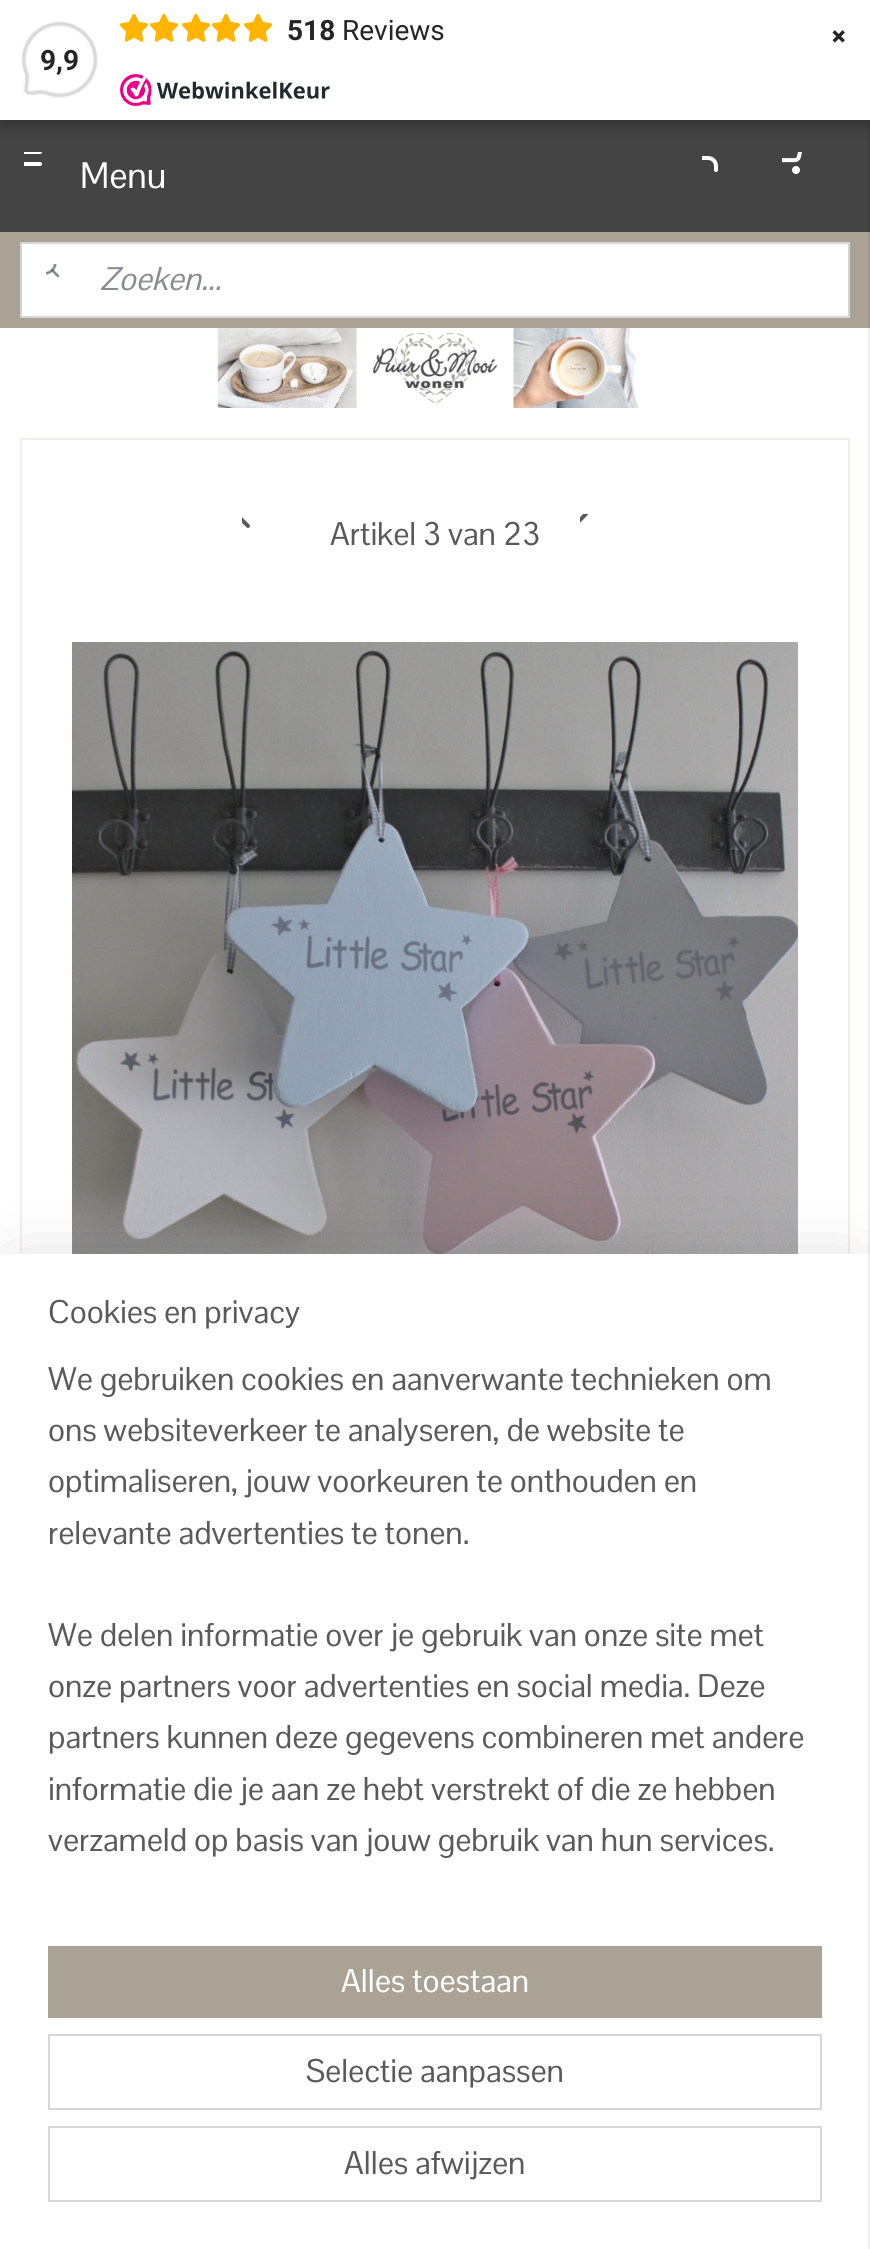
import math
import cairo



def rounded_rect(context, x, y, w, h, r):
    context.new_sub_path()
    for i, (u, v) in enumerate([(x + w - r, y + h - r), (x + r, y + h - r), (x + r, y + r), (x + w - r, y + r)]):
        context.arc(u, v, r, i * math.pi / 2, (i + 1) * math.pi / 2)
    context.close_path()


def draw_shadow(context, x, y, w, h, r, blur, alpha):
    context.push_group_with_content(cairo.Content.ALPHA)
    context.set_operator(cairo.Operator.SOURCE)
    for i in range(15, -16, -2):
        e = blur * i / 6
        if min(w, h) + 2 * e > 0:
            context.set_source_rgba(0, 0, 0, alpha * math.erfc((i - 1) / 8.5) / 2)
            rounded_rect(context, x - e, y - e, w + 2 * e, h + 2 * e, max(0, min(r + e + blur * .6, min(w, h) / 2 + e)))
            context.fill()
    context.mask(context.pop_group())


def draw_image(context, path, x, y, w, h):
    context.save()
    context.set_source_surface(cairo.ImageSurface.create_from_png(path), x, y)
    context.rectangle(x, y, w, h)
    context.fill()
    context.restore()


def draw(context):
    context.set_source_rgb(1, 1, 1)
    context.paint()
    context.set_source_rgb(68 / 255, 68 / 255, 68 / 255)
    context.rectangle(0, 120, 870, 112)
    context.fill()
    context.set_source_rgb(0, 0, 0)
    draw_shadow(context, -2, -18, 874, 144, 0, 6, 0.15)
    draw_image(context, "images/4.png", 24, 152, 18, 14)
    draw_image(context, "images/6.png", 782, 152, 20, 22)
    draw_shadow(context, 0, 4, 870, 120, 0, 10, 0.15)
    context.set_source_rgb(170 / 255, 162 / 255, 149 / 255)
    context.rectangle(0, 232, 870, 96)
    context.fill()
    context.rectangle(21, 439, 828, 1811)
    context.set_source_rgb(243 / 255, 238 / 255, 235 / 255)
    context.stroke()
    draw_image(context, "images/11.png", 72, 642, 726, 612)
    context.set_source_rgb(0, 0, 0)
    draw_shadow(context, 20, 1274, 830, 956, 0, 36, 0.2)
    context.set_source_rgb(1, 1, 1)
    context.rectangle(0, 1254, 870, 995)
    context.fill()
    context.set_source_rgb(0, 0, 0)
    draw_shadow(context, 870, 2, 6, 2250, 0, 2, 0.2)
    context.set_source_rgb(1, 1, 1)
    context.rectangle(0, 0, 870, 120)
    context.fill()
    draw_image(context, "images/1.png", 120, 74, 210, 32)
    draw_image(context, "images/2.png", 120, 14, 28, 28)
    draw_image(context, "images/2.png", 150, 14, 28, 28)
    draw_image(context, "images/2.png", 182, 14, 28, 28)
    draw_image(context, "images/2.png", 212, 14, 28, 28)
    draw_image(context, "images/2.png", 244, 14, 28, 28)
    draw_image(context, "images/3.png", 21, 21, 77, 77)
    draw_image(context, "images/5.png", 702, 156, 16, 16)
    context.rectangle(21, 243, 828, 74)
    context.fill_preserve()
    context.set_source_rgb(211 / 255, 213 / 255, 217 / 255)
    context.stroke()
    draw_image(context, "images/7.png", 46, 264, 14, 14)
    draw_image(context, "images/8.png", 217, 328, 422, 80)
    draw_image(context, "images/9.png", 242, 517, 8, 11)
    draw_image(context, "images/10.png", 580, 514, 8, 9)
    context.set_source_rgb(170 / 255, 162 / 255, 149 / 255)
    context.rectangle(48, 1946, 774, 72)
    context.fill()
    context.rectangle(49, 2035, 772, 74)
    context.set_source_rgb(214 / 255, 214 / 255, 214 / 255)
    context.stroke()
    context.rectangle(49, 2127, 772, 74)
    context.stroke()
    context.select_font_face("Roboto", cairo.FontSlant.NORMAL, cairo.FontWeight.BOLD)
    context.set_font_size(28)
    context.set_source_rgb(39 / 255, 38 / 255, 38 / 255)
    context.move_to(287, 40)
    context.show_text("518")
    context.select_font_face("Roboto")
    context.move_to(342, 40)
    context.show_text("Reviews")
    context.select_font_face("Pontano Sans")
    context.set_font_size(48)
    context.move_to(827, 47)
    context.show_text("×")
    context.select_font_face("Roboto", cairo.FontSlant.NORMAL, cairo.FontWeight.BOLD)
    context.set_font_size(28)
    context.move_to(40, 70)
    context.show_text("9,9")
    context.select_font_face("Pontano Sans")
    context.set_font_size(36)
    context.set_source_rgb(1, 1, 1)
    context.move_to(80, 188)
    context.show_text("Menu")
    context.select_font_face("Pontano Sans", cairo.FontSlant.ITALIC)
    context.set_font_size(32)
    context.set_source_rgb(137 / 255, 140 / 255, 145 / 255)
    context.move_to(100, 290)
    context.show_text("Zoeken...")
    context.select_font_face("Pontano Sans")
    context.set_source_rgb(90 / 255, 90 / 255, 90 / 255)
    context.move_to(330, 545)
    context.show_text("Artikel 3 van 23")
    context.move_to(48, 1323)
    context.show_text("Cookies en privacy")
    context.move_to(48, 1390)
    context.show_text("We gebruiken cookies en aanverwante technieken om")
    context.move_to(48, 1441)
    context.show_text("ons websiteverkeer te analyseren, de website te")
    context.move_to(48, 1492)
    context.show_text("optimaliseren, jouw voorkeuren te onthouden en")
    context.move_to(48, 1544)
    context.show_text("relevante advertenties te tonen.")
    context.move_to(48, 1646)
    context.show_text("We delen informatie over je gebruik van onze site met")
    context.move_to(48, 1697)
    context.show_text("onze partners voor advertenties en social media. Deze")
    context.move_to(48, 1748)
    context.show_text("partners kunnen deze gegevens combineren met andere")
    context.move_to(48, 1800)
    context.show_text("informatie die je aan ze hebt verstrekt of die ze hebben")
    context.move_to(48, 1851)
    context.show_text("verzameld op basis van jouw gebruik van hun services.")
    context.set_source_rgb(1, 1, 1)
    context.move_to(341, 1992)
    context.show_text("Alles toestaan")
    context.set_source_rgb(90 / 255, 90 / 255, 90 / 255)
    context.move_to(306, 2082)
    context.show_text("Selectie aanpassen")
    context.move_to(344, 2174)
    context.show_text("Alles afwijzen")


surface = cairo.ImageSurface(cairo.Format.RGB24, 870, 2249)
context = cairo.Context(surface)
options = cairo.FontOptions()
options.set_hint_metrics(cairo.HintMetrics.OFF)
options.set_hint_style(cairo.HintStyle.NONE)
context.set_font_options(options)
context.set_miter_limit(4)
draw(context)
surface.write_to_png("out.png")
